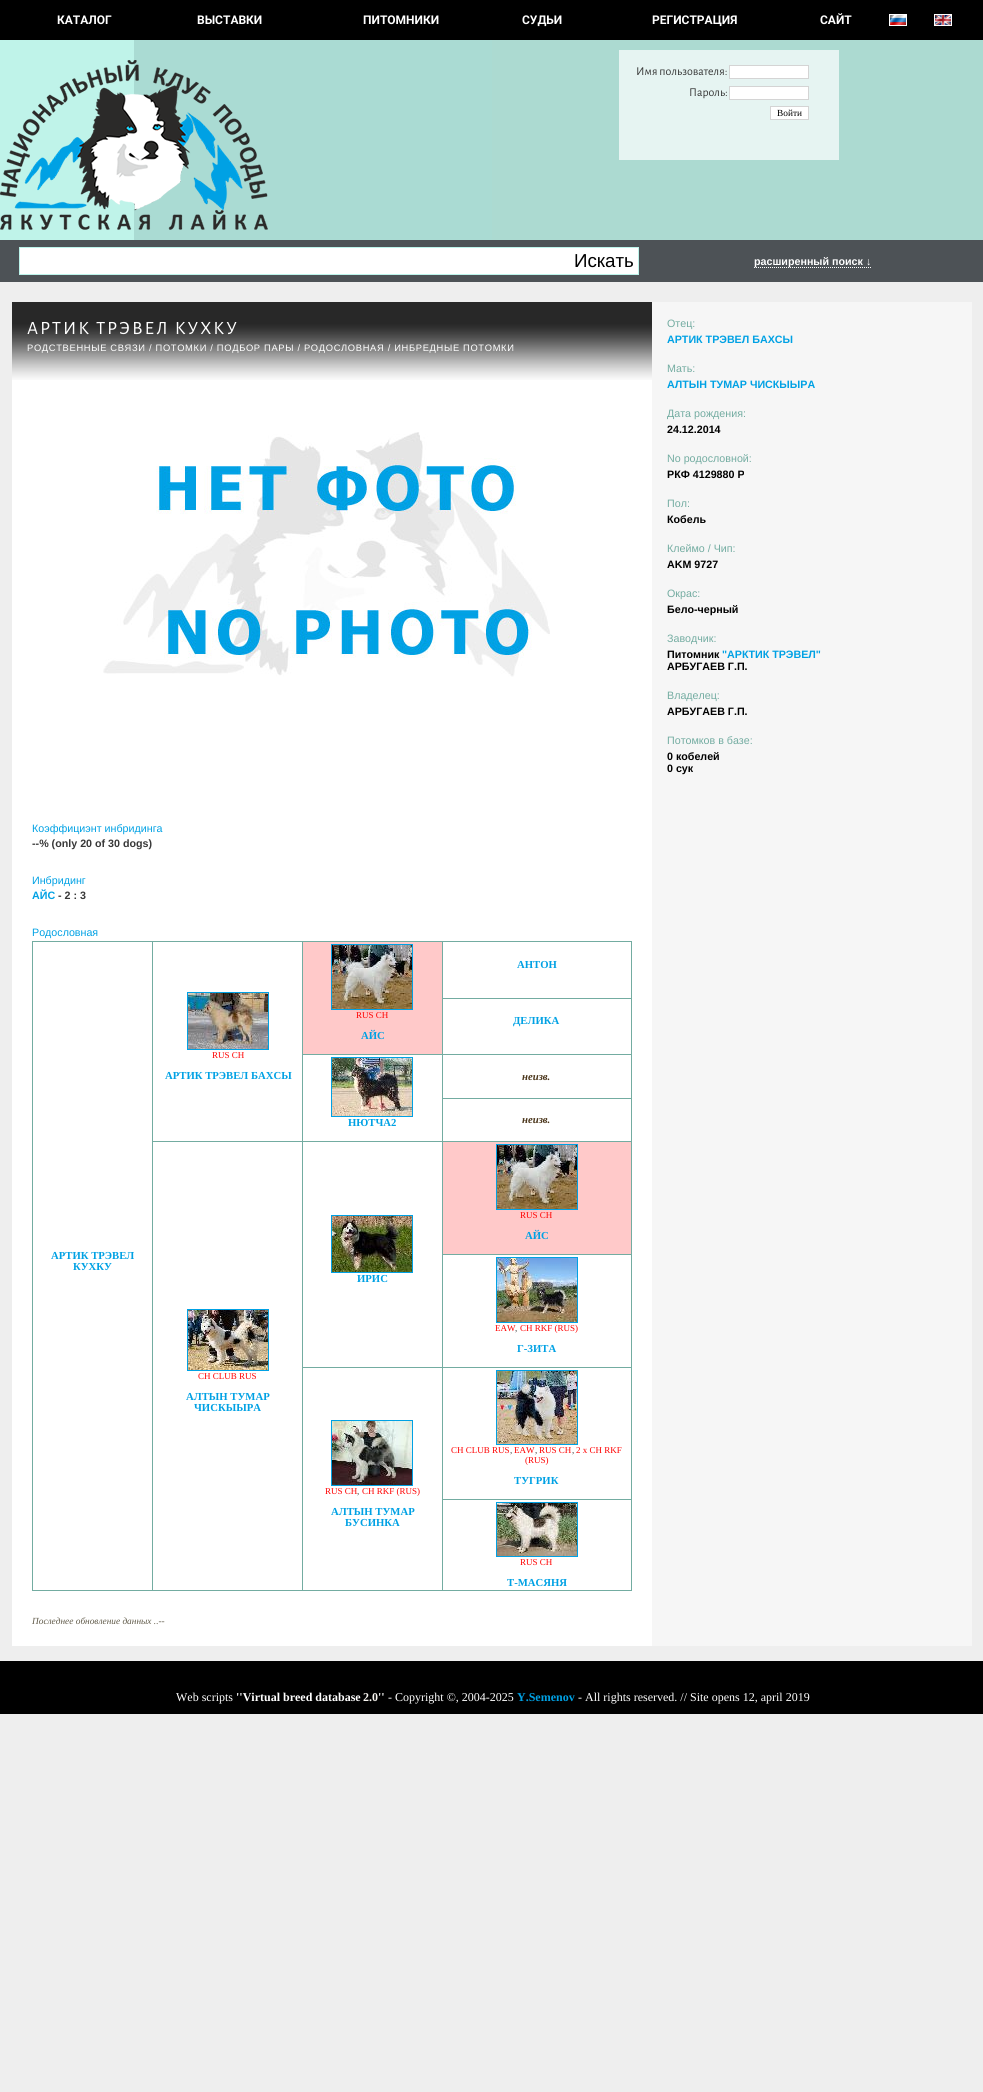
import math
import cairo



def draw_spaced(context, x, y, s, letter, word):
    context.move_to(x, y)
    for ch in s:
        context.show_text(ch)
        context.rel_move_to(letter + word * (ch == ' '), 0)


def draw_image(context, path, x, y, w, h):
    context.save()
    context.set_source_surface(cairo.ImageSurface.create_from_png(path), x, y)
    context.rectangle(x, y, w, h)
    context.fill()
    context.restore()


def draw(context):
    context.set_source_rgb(238 / 255, 238 / 255, 238 / 255)
    context.paint()
    context.set_source_rgb(0, 0, 0)
    context.rectangle(0, 0, 983, 40)
    context.fill()
    context.rectangle(889.5, 14.5, 17, 11)
    context.set_source_rgb(1, 1, 1)
    context.set_line_width(1)
    context.stroke()
    draw_image(context, "images/1.png", 890, 15, 16, 10)
    context.rectangle(934.5, 14.5, 17, 11)
    context.stroke()
    draw_image(context, "images/2.png", 935, 15, 16, 10)
    draw_image(context, "images/3.png", 0, 40, 983, 200)
    draw_image(context, "images/4.png", 0, 60, 134, 170)
    context.set_source_rgb(170 / 255, 219 / 255, 211 / 255)
    context.rectangle(134, 40, 358, 200)
    context.fill()
    draw_image(context, "images/5.png", 134, 60, 134, 170)
    context.set_source_rgb(230 / 255, 244 / 255, 242 / 255)
    context.rectangle(619, 50, 220, 110)
    context.fill()
    context.set_source_rgb(1, 1, 1)
    context.rectangle(729.5, 65.5, 79, 13)
    context.fill_preserve()
    context.set_source_rgb(212 / 255, 212 / 255, 212 / 255)
    context.stroke()
    context.set_source_rgb(1, 1, 1)
    context.rectangle(729.5, 86.5, 79, 13)
    context.fill_preserve()
    context.set_source_rgb(212 / 255, 212 / 255, 212 / 255)
    context.stroke()
    context.set_source_rgb(1, 1, 1)
    context.rectangle(770.5, 106.5, 38, 13)
    context.fill_preserve()
    context.set_source_rgb(212 / 255, 212 / 255, 212 / 255)
    context.stroke()
    context.set_source_rgb(77 / 255, 82 / 255, 86 / 255)
    context.rectangle(0, 240, 983, 42)
    context.fill()
    context.set_source_rgb(1, 1, 1)
    context.rectangle(20, 248, 618, 26)
    context.fill()
    context.set_source_rgb(188 / 255, 243 / 255, 234 / 255)
    context.rectangle(19, 247, 620, 1)
    context.fill()
    context.rectangle(19, 274, 550, 1)
    context.fill()
    context.rectangle(19, 247, 1, 28)
    context.fill()
    context.rectangle(638, 247, 1, 28)
    context.fill()
    context.rectangle(569, 274, 70, 1)
    context.fill()
    context.new_path()
    context.move_to(754, 267.5)
    context.line_to(871, 267.5)
    context.set_source_rgb(1, 1, 1)
    context.set_dash([1, 1])
    context.stroke()
    context.rectangle(12, 324, 640, 1322)
    context.fill()
    draw_image(context, "images/6.png", 103, 432, 447, 245)
    draw_image(context, "images/7.png", 12, 302, 640, 78)
    context.set_source_rgb(115 / 255, 172 / 255, 161 / 255)
    context.rectangle(442, 941, 190, 1)
    context.fill()
    context.rectangle(442, 998, 190, 1)
    context.fill()
    context.rectangle(442, 1054, 190, 1)
    context.fill()
    context.rectangle(442, 1098, 190, 1)
    context.fill()
    context.rectangle(442, 1141, 190, 1)
    context.fill()
    context.rectangle(442, 1254, 190, 1)
    context.fill()
    context.rectangle(442, 1367, 190, 1)
    context.fill()
    context.rectangle(442, 1499, 190, 1)
    context.fill()
    context.rectangle(631, 1499, 1, 92)
    context.fill()
    context.rectangle(631, 1367, 1, 133)
    context.fill()
    context.rectangle(631, 1254, 1, 114)
    context.fill()
    context.rectangle(631, 1141, 1, 114)
    context.fill()
    context.rectangle(631, 1098, 1, 44)
    context.fill()
    context.rectangle(631, 1054, 1, 45)
    context.fill()
    context.rectangle(631, 998, 1, 57)
    context.fill()
    context.rectangle(631, 941, 1, 58)
    context.fill()
    context.rectangle(442, 1590, 190, 1)
    context.fill()
    context.rectangle(442, 1499, 1, 92)
    context.fill()
    context.rectangle(442, 1367, 1, 133)
    context.fill()
    context.rectangle(302, 1367, 141, 1)
    context.fill()
    context.rectangle(442, 1254, 1, 114)
    context.fill()
    context.rectangle(442, 1141, 1, 114)
    context.fill()
    context.rectangle(302, 1141, 141, 1)
    context.fill()
    context.rectangle(442, 1098, 1, 44)
    context.fill()
    context.rectangle(442, 1054, 1, 45)
    context.fill()
    context.rectangle(302, 1054, 141, 1)
    context.fill()
    context.rectangle(442, 998, 1, 57)
    context.fill()
    context.rectangle(442, 941, 1, 58)
    context.fill()
    context.set_source_rgb(1, 201 / 255, 201 / 255)
    context.rectangle(303, 942, 139, 112)
    context.fill()
    context.set_source_rgb(115 / 255, 172 / 255, 161 / 255)
    context.rectangle(302, 941, 141, 1)
    context.fill()
    context.rectangle(302, 1590, 141, 1)
    context.fill()
    context.rectangle(302, 1367, 1, 224)
    context.fill()
    context.rectangle(302, 1141, 1, 227)
    context.fill()
    context.rectangle(152, 1141, 151, 1)
    context.fill()
    context.rectangle(302, 1054, 1, 88)
    context.fill()
    context.rectangle(302, 941, 1, 114)
    context.fill()
    context.rectangle(331.5, 944.5, 81, 65)
    context.set_source_rgb(0, 161 / 255, 228 / 255)
    context.set_dash([])
    context.stroke()
    draw_image(context, "images/8.png", 332, 945, 80, 64)
    context.set_source_rgb(115 / 255, 172 / 255, 161 / 255)
    context.rectangle(152, 941, 151, 1)
    context.fill()
    context.rectangle(152, 1590, 151, 1)
    context.fill()
    context.rectangle(152, 1141, 1, 450)
    context.fill()
    context.rectangle(152, 941, 1, 201)
    context.fill()
    context.rectangle(187.5, 992.5, 81, 57)
    context.set_source_rgb(0, 161 / 255, 228 / 255)
    context.stroke()
    draw_image(context, "images/9.png", 188, 993, 80, 56)
    context.set_source_rgb(115 / 255, 172 / 255, 161 / 255)
    context.rectangle(32, 941, 121, 1)
    context.fill()
    context.rectangle(32, 1590, 121, 1)
    context.fill()
    context.rectangle(32, 941, 1, 650)
    context.fill()
    context.rectangle(331.5, 1057.5, 81, 59)
    context.set_source_rgb(0, 161 / 255, 228 / 255)
    context.stroke()
    draw_image(context, "images/10.png", 332, 1058, 80, 58)
    context.set_source_rgb(1, 201 / 255, 201 / 255)
    context.rectangle(443, 1142, 188, 112)
    context.fill()
    context.rectangle(496.5, 1144.5, 81, 65)
    context.set_source_rgb(0, 161 / 255, 228 / 255)
    context.stroke()
    draw_image(context, "images/8.png", 497, 1145, 80, 64)
    context.rectangle(331.5, 1215.5, 81, 57)
    context.stroke()
    draw_image(context, "images/11.png", 332, 1216, 80, 56)
    context.rectangle(187.5, 1309.5, 81, 61)
    context.stroke()
    draw_image(context, "images/12.png", 188, 1310, 80, 60)
    context.rectangle(496.5, 1257.5, 81, 65)
    context.stroke()
    draw_image(context, "images/13.png", 497, 1258, 80, 64)
    context.rectangle(496.5, 1370.5, 81, 74)
    context.stroke()
    draw_image(context, "images/14.png", 497, 1371, 80, 73)
    context.rectangle(331.5, 1420.5, 81, 65)
    context.stroke()
    draw_image(context, "images/15.png", 332, 1421, 80, 64)
    context.rectangle(496.5, 1502.5, 81, 54)
    context.stroke()
    draw_image(context, "images/16.png", 497, 1503, 80, 53)
    context.set_source_rgb(246 / 255, 246 / 255, 246 / 255)
    context.rectangle(652, 302, 320, 1344)
    context.fill()
    context.set_source_rgb(0, 0, 0)
    context.rectangle(0, 1661, 983, 53)
    context.fill()
    context.select_font_face("Roboto", cairo.FontSlant.NORMAL, cairo.FontWeight.BOLD)
    context.set_font_size(12)
    context.set_source_rgb(1, 1, 1)
    context.move_to(57, 24)
    context.show_text("КАТАЛОГ")
    context.move_to(197, 24)
    context.show_text("ВЫСТАВКИ")
    context.move_to(363, 24)
    context.show_text("ПИТОМНИКИ")
    context.move_to(522, 24)
    context.show_text("СУДЬИ")
    context.move_to(652, 24)
    context.show_text("РЕГИСТРАЦИЯ")
    context.move_to(820, 24)
    context.show_text("САЙТ")
    context.select_font_face("Alegreya Sans")
    context.set_source_rgb(56 / 255, 56 / 255, 56 / 255)
    context.move_to(636, 75)
    context.show_text("Имя пользователя:")
    context.move_to(689, 96)
    context.show_text("Пароль:")
    context.select_font_face("Liberation Serif")
    context.set_font_size(9.33)
    context.set_source_rgb(0, 0, 0)
    context.move_to(777, 116)
    context.show_text("Войти")
    context.select_font_face("Liberation Sans")
    context.set_font_size(18.75)
    context.move_to(574, 267)
    context.show_text("Искать")
    context.select_font_face("Liberation Sans", cairo.FontSlant.NORMAL, cairo.FontWeight.BOLD)
    context.set_font_size(10.7)
    context.set_source_rgb(1, 1, 1)
    context.move_to(754, 265)
    context.show_text("расширенный поиск ↓")
    context.select_font_face("Alegreya Sans")
    context.set_font_size(18.75)
    draw_spaced(context, 27, 334, "АРТИК ТРЭВЕЛ КУХКУ", 2, 0)
    context.select_font_face("Liberation Sans")
    context.set_font_size(9.33)
    draw_spaced(context, 27, 351, "РОДСТВЕННЫЕ СВЯЗИ / ПОТОМКИ / ПОДБОР ПАРЫ / РОДОСЛОВНАЯ / ИНБРЕДНЫЕ ПОТОМКИ", 0.67, 0)
    context.set_font_size(10.7)
    context.set_source_rgb(0, 161 / 255, 228 / 255)
    context.move_to(32, 832)
    context.show_text("Коэффициэнт инбридинга")
    context.select_font_face("Liberation Sans", cairo.FontSlant.NORMAL, cairo.FontWeight.BOLD)
    context.set_source_rgb(56 / 255, 56 / 255, 56 / 255)
    context.move_to(32, 847)
    context.show_text("--% (only 20 of 30 dogs)")
    context.select_font_face("Liberation Sans")
    context.set_source_rgb(0, 161 / 255, 228 / 255)
    context.move_to(32, 884)
    context.show_text("Инбридинг")
    context.select_font_face("Liberation Sans", cairo.FontSlant.NORMAL, cairo.FontWeight.BOLD)
    context.move_to(32, 899)
    context.show_text("АЙС")
    context.set_source_rgb(56 / 255, 56 / 255, 56 / 255)
    context.move_to(58, 899)
    context.show_text("- 2 : 3")
    context.select_font_face("Liberation Sans")
    context.set_source_rgb(0, 161 / 255, 228 / 255)
    context.move_to(32, 936)
    context.show_text("Родословная")
    context.select_font_face("Liberation Serif", cairo.FontSlant.NORMAL, cairo.FontWeight.BOLD)
    context.move_to(517, 968)
    context.show_text("АНТОН")
    context.select_font_face("Liberation Serif")
    context.set_font_size(9)
    context.set_source_rgb(1, 0, 0)
    context.move_to(356, 1018)
    context.show_text("RUS CH")
    context.select_font_face("Liberation Serif", cairo.FontSlant.NORMAL, cairo.FontWeight.BOLD)
    context.set_font_size(10.7)
    context.set_source_rgb(0, 161 / 255, 228 / 255)
    context.move_to(361, 1039)
    context.show_text("АЙС")
    context.select_font_face("Liberation Serif")
    context.set_font_size(9)
    context.set_source_rgb(1, 0, 0)
    context.move_to(212, 1058)
    context.show_text("RUS CH")
    context.select_font_face("Liberation Serif", cairo.FontSlant.NORMAL, cairo.FontWeight.BOLD)
    context.set_font_size(10.7)
    context.set_source_rgb(0, 161 / 255, 228 / 255)
    context.move_to(165, 1079)
    context.show_text("АРТИК ТРЭВЕЛ БАХСЫ")
    context.move_to(51, 1259)
    context.show_text("АРТИК ТРЭВЕЛ")
    context.move_to(73, 1270)
    context.show_text("КУХКУ")
    context.move_to(513, 1024)
    context.show_text("ДЕЛИКА")
    context.select_font_face("Liberation Serif", cairo.FontSlant.ITALIC, cairo.FontWeight.BOLD)
    context.set_source_rgb(75 / 255, 54 / 255, 27 / 255)
    context.move_to(522, 1080)
    context.show_text("неизв.")
    context.select_font_face("Liberation Serif", cairo.FontSlant.NORMAL, cairo.FontWeight.BOLD)
    context.set_source_rgb(0, 161 / 255, 228 / 255)
    context.move_to(348, 1126)
    context.show_text("НЮТЧА2")
    context.select_font_face("Liberation Serif", cairo.FontSlant.ITALIC, cairo.FontWeight.BOLD)
    context.set_source_rgb(75 / 255, 54 / 255, 27 / 255)
    context.move_to(522, 1123)
    context.show_text("неизв.")
    context.select_font_face("Liberation Serif")
    context.set_font_size(9)
    context.set_source_rgb(1, 0, 0)
    context.move_to(520, 1218)
    context.show_text("RUS CH")
    context.select_font_face("Liberation Serif", cairo.FontSlant.NORMAL, cairo.FontWeight.BOLD)
    context.set_font_size(10.7)
    context.set_source_rgb(0, 161 / 255, 228 / 255)
    context.move_to(525, 1239)
    context.show_text("АЙС")
    context.move_to(357, 1282)
    context.show_text("ИРИС")
    context.select_font_face("Liberation Serif")
    context.set_font_size(9)
    context.set_source_rgb(1, 0, 0)
    context.move_to(198, 1379)
    context.show_text("CH CLUB RUS")
    context.select_font_face("Liberation Serif", cairo.FontSlant.NORMAL, cairo.FontWeight.BOLD)
    context.set_font_size(10.7)
    context.set_source_rgb(0, 161 / 255, 228 / 255)
    context.move_to(186, 1400)
    context.show_text("АЛТЫН ТУМАР")
    context.move_to(194, 1411)
    context.show_text("ЧИСКЫЫРА")
    context.select_font_face("Liberation Serif")
    context.set_font_size(9)
    context.set_source_rgb(1, 0, 0)
    context.move_to(495, 1331)
    context.show_text("EAW")
    context.set_source_rgb(56 / 255, 56 / 255, 56 / 255)
    context.move_to(515, 1331)
    context.show_text(",")
    context.set_source_rgb(1, 0, 0)
    context.move_to(520, 1331)
    context.show_text("CH RKF (RUS)")
    context.select_font_face("Liberation Serif", cairo.FontSlant.NORMAL, cairo.FontWeight.BOLD)
    context.set_font_size(10.7)
    context.set_source_rgb(0, 161 / 255, 228 / 255)
    context.move_to(517, 1352)
    context.show_text("Г-ЗИТА")
    context.select_font_face("Liberation Serif")
    context.set_font_size(9)
    context.set_source_rgb(1, 0, 0)
    context.move_to(451, 1453)
    context.show_text("CH CLUB RUS")
    context.set_source_rgb(56 / 255, 56 / 255, 56 / 255)
    context.move_to(510, 1453)
    context.show_text(",")
    context.set_source_rgb(1, 0, 0)
    context.move_to(514, 1453)
    context.show_text("EAW")
    context.set_source_rgb(56 / 255, 56 / 255, 56 / 255)
    context.move_to(535, 1453)
    context.show_text(",")
    context.set_source_rgb(1, 0, 0)
    context.move_to(539, 1453)
    context.show_text("RUS CH")
    context.set_source_rgb(56 / 255, 56 / 255, 56 / 255)
    context.move_to(572, 1453)
    context.show_text(",")
    context.set_source_rgb(1, 0, 0)
    context.move_to(576, 1453)
    context.show_text("2 x CH RKF")
    context.move_to(525, 1463)
    context.show_text("(RUS)")
    context.select_font_face("Liberation Serif", cairo.FontSlant.NORMAL, cairo.FontWeight.BOLD)
    context.set_font_size(10.7)
    context.set_source_rgb(0, 161 / 255, 228 / 255)
    context.move_to(514, 1484)
    context.show_text("ТУГРИК")
    context.select_font_face("Liberation Serif")
    context.set_font_size(9)
    context.set_source_rgb(1, 0, 0)
    context.move_to(325, 1494)
    context.show_text("RUS CH")
    context.set_source_rgb(56 / 255, 56 / 255, 56 / 255)
    context.move_to(357, 1494)
    context.show_text(",")
    context.set_source_rgb(1, 0, 0)
    context.move_to(362, 1494)
    context.show_text("CH RKF (RUS)")
    context.select_font_face("Liberation Serif", cairo.FontSlant.NORMAL, cairo.FontWeight.BOLD)
    context.set_font_size(10.7)
    context.set_source_rgb(0, 161 / 255, 228 / 255)
    context.move_to(331, 1515)
    context.show_text("АЛТЫН ТУМАР")
    context.move_to(345, 1526)
    context.show_text("БУСИНКА")
    context.select_font_face("Liberation Serif")
    context.set_font_size(9)
    context.set_source_rgb(1, 0, 0)
    context.move_to(520, 1565)
    context.show_text("RUS CH")
    context.select_font_face("Liberation Serif", cairo.FontSlant.NORMAL, cairo.FontWeight.BOLD)
    context.set_font_size(10.7)
    context.set_source_rgb(0, 161 / 255, 228 / 255)
    context.move_to(507, 1586)
    context.show_text("Т-МАСЯНЯ")
    context.select_font_face("Liberation Serif", cairo.FontSlant.ITALIC)
    context.set_font_size(9.33)
    context.set_source_rgb(97 / 255, 91 / 255, 74 / 255)
    context.move_to(32, 1624)
    context.show_text("Последнее обновление данных ..--")
    context.select_font_face("Liberation Sans")
    context.set_font_size(10.7)
    context.set_source_rgb(115 / 255, 172 / 255, 161 / 255)
    context.move_to(667, 327)
    context.show_text("Отец:")
    context.select_font_face("Liberation Sans", cairo.FontSlant.NORMAL, cairo.FontWeight.BOLD)
    context.set_source_rgb(0, 161 / 255, 228 / 255)
    context.move_to(667, 343)
    context.show_text("АРТИК ТРЭВЕЛ БАХСЫ")
    context.select_font_face("Liberation Sans")
    context.set_source_rgb(115 / 255, 172 / 255, 161 / 255)
    context.move_to(667, 372)
    context.show_text("Мать:")
    context.select_font_face("Liberation Sans", cairo.FontSlant.NORMAL, cairo.FontWeight.BOLD)
    context.set_source_rgb(0, 161 / 255, 228 / 255)
    context.move_to(667, 388)
    context.show_text("АЛТЫН ТУМАР ЧИСКЫЫРА")
    context.select_font_face("Liberation Sans")
    context.set_source_rgb(115 / 255, 172 / 255, 161 / 255)
    context.move_to(667, 417)
    context.show_text("Дата рождения:")
    context.select_font_face("Liberation Sans", cairo.FontSlant.NORMAL, cairo.FontWeight.BOLD)
    context.set_source_rgb(0, 0, 0)
    context.move_to(667, 433)
    context.show_text("24.12.2014")
    context.select_font_face("Liberation Sans")
    context.set_source_rgb(115 / 255, 172 / 255, 161 / 255)
    context.move_to(667, 462)
    context.show_text("No родословной:")
    context.select_font_face("Liberation Sans", cairo.FontSlant.NORMAL, cairo.FontWeight.BOLD)
    context.set_source_rgb(0, 0, 0)
    context.move_to(667, 478)
    context.show_text("РКФ 4129880 Р")
    context.select_font_face("Liberation Sans")
    context.set_source_rgb(115 / 255, 172 / 255, 161 / 255)
    context.move_to(667, 507)
    context.show_text("Пол:")
    context.select_font_face("Liberation Sans", cairo.FontSlant.NORMAL, cairo.FontWeight.BOLD)
    context.set_source_rgb(0, 0, 0)
    context.move_to(667, 523)
    context.show_text("Кобель")
    context.select_font_face("Liberation Sans")
    context.set_source_rgb(115 / 255, 172 / 255, 161 / 255)
    context.move_to(667, 552)
    context.show_text("Клеймо / Чип:")
    context.select_font_face("Liberation Sans", cairo.FontSlant.NORMAL, cairo.FontWeight.BOLD)
    context.set_source_rgb(0, 0, 0)
    context.move_to(667, 568)
    context.show_text("AKM 9727")
    context.select_font_face("Liberation Sans")
    context.set_source_rgb(115 / 255, 172 / 255, 161 / 255)
    context.move_to(667, 597)
    context.show_text("Окрас:")
    context.select_font_face("Liberation Sans", cairo.FontSlant.NORMAL, cairo.FontWeight.BOLD)
    context.set_source_rgb(0, 0, 0)
    context.move_to(667, 613)
    context.show_text("Бело-черный")
    context.select_font_face("Liberation Sans")
    context.set_source_rgb(115 / 255, 172 / 255, 161 / 255)
    context.move_to(667, 642)
    context.show_text("Заводчик:")
    context.select_font_face("Liberation Sans", cairo.FontSlant.NORMAL, cairo.FontWeight.BOLD)
    context.set_source_rgb(0, 0, 0)
    context.move_to(667, 658)
    context.show_text("Питомник")
    context.set_source_rgb(0, 161 / 255, 228 / 255)
    context.move_to(722, 658)
    context.show_text("\"АРКТИК ТРЭВЕЛ\"")
    context.set_source_rgb(0, 0, 0)
    context.move_to(667, 670)
    context.show_text("АРБУГАЕВ Г.П.")
    context.select_font_face("Liberation Sans")
    context.set_source_rgb(115 / 255, 172 / 255, 161 / 255)
    context.move_to(667, 699)
    context.show_text("Владелец:")
    context.select_font_face("Liberation Sans", cairo.FontSlant.NORMAL, cairo.FontWeight.BOLD)
    context.set_source_rgb(0, 0, 0)
    context.move_to(667, 715)
    context.show_text("АРБУГАЕВ Г.П.")
    context.select_font_face("Liberation Sans")
    context.set_source_rgb(115 / 255, 172 / 255, 161 / 255)
    context.move_to(667, 744)
    context.show_text("Потомков в базе:")
    context.select_font_face("Liberation Sans", cairo.FontSlant.NORMAL, cairo.FontWeight.BOLD)
    context.set_source_rgb(0, 0, 0)
    context.move_to(667, 760)
    context.show_text("0 кобелей")
    context.move_to(667, 772)
    context.show_text("0 сук")
    context.select_font_face("Liberation Serif")
    context.set_font_size(12)
    context.set_source_rgb(1, 1, 1)
    context.move_to(176, 1701)
    context.show_text("Web scripts")
    context.select_font_face("Liberation Serif", cairo.FontSlant.NORMAL, cairo.FontWeight.BOLD)
    context.move_to(236, 1701)
    context.show_text("''Virtual breed database")
    context.set_source_rgb(248 / 255, 245 / 255, 240 / 255)
    context.move_to(363, 1701)
    context.show_text("2.0")
    context.set_source_rgb(1, 1, 1)
    context.move_to(378, 1701)
    context.show_text("''")
    context.select_font_face("Liberation Serif")
    context.move_to(388, 1701)
    context.show_text("- Copyright ©, 2004-2025")
    context.select_font_face("Liberation Serif", cairo.FontSlant.NORMAL, cairo.FontWeight.BOLD)
    context.set_source_rgb(0, 161 / 255, 228 / 255)
    context.move_to(517, 1701)
    context.show_text("Y.Semenov")
    context.select_font_face("Liberation Serif")
    context.set_source_rgb(1, 1, 1)
    context.move_to(578, 1701)
    context.show_text("- All rights reserved. // Site opens 12, april 2019")


surface = cairo.ImageSurface(cairo.Format.RGB24, 983, 2092)
context = cairo.Context(surface)
options = cairo.FontOptions()
options.set_hint_metrics(cairo.HintMetrics.OFF)
options.set_hint_style(cairo.HintStyle.NONE)
context.set_font_options(options)
context.set_miter_limit(4)
draw(context)
surface.write_to_png("out.png")
